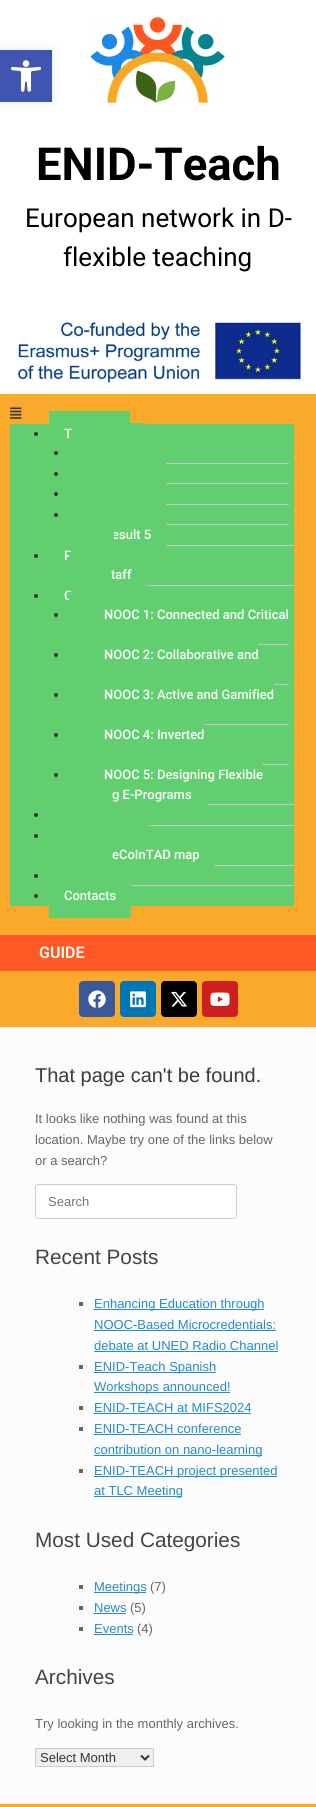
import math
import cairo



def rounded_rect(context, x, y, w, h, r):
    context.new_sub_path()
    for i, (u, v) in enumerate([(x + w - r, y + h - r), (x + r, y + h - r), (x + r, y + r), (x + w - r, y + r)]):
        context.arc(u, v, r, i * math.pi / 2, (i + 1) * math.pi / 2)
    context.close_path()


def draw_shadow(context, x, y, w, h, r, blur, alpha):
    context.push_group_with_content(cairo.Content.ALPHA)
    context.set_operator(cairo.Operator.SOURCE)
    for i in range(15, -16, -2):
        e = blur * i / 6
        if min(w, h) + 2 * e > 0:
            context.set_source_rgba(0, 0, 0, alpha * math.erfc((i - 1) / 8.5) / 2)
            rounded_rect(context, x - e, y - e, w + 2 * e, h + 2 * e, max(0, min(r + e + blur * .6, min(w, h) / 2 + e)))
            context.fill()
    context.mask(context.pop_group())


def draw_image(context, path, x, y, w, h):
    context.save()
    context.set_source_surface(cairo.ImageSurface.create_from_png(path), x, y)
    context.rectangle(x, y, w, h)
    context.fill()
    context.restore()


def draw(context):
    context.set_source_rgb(252 / 255, 252 / 255, 252 / 255)
    context.paint()
    context.set_source_rgb(1, 1, 1)
    context.rectangle(0, 0, 316, 394)
    context.fill()
    context.set_source_rgb(0, 0, 0)
    draw_shadow(context, 0, 50, 52, 52, 0, 5, 0.1)
    context.set_source_rgb(64 / 255, 84 / 255, 178 / 255)
    context.rectangle(0, 50, 52, 52)
    context.fill()
    draw_image(context, "images/1.png", 11, 60, 30, 32)
    draw_image(context, "images/2.png", 90, 17, 135, 86)
    draw_image(context, "images/3.png", 17, 321, 284, 63)
    context.set_source_rgb(251 / 255, 169 / 255, 43 / 255)
    context.rectangle(0, 394, 316, 633)
    context.fill()
    draw_image(context, "images/4.png", 10, 407, 12, 12)
    context.set_source_rgb(97 / 255, 206 / 255, 112 / 255)
    context.rectangle(10, 424, 284, 482)
    context.fill()
    context.set_source_rgb(196 / 255, 196 / 255, 196 / 255)
    context.rectangle(166, 545, 128, 1)
    context.fill()
    context.set_source_rgb(51 / 255, 51 / 255, 51 / 255)
    context.arc(36, 434, 2, 0, 2 * math.pi)
    context.fill()
    context.set_source_rgb(97 / 255, 206 / 255, 112 / 255)
    context.rectangle(49, 411, 81, 13)
    context.fill()
    context.rectangle(130, 423, 15, 1)
    context.fill()
    context.set_source_rgb(196 / 255, 196 / 255, 196 / 255)
    context.rectangle(166, 463, 123, 1)
    context.fill()
    context.set_source_rgb(51 / 255, 51 / 255, 51 / 255)
    context.arc(56, 453, 2, 0, 2 * math.pi)
    context.fill()
    context.set_source_rgb(196 / 255, 196 / 255, 196 / 255)
    context.rectangle(166, 483, 123, 1)
    context.fill()
    context.set_source_rgb(51 / 255, 51 / 255, 51 / 255)
    context.arc(56, 474, 2, 0, 2 * math.pi)
    context.fill()
    context.set_source_rgb(196 / 255, 196 / 255, 196 / 255)
    context.rectangle(166, 504, 123, 1)
    context.fill()
    context.set_source_rgb(51 / 255, 51 / 255, 51 / 255)
    context.arc(56, 494, 2, 0, 2 * math.pi)
    context.fill()
    context.set_source_rgb(196 / 255, 196 / 255, 196 / 255)
    context.rectangle(166, 524, 123, 1)
    context.fill()
    context.set_source_rgb(51 / 255, 51 / 255, 51 / 255)
    context.arc(56, 515, 2, 0, 2 * math.pi)
    context.fill()
    context.set_source_rgb(196 / 255, 196 / 255, 196 / 255)
    context.rectangle(147, 585, 147, 1)
    context.fill()
    context.set_source_rgb(51 / 255, 51 / 255, 51 / 255)
    context.arc(36, 556, 2, 0, 2 * math.pi)
    context.fill()
    context.set_source_rgb(196 / 255, 196 / 255, 196 / 255)
    context.rectangle(207, 804, 87, 1)
    context.fill()
    context.set_source_rgb(51 / 255, 51 / 255, 51 / 255)
    context.arc(36, 596, 2, 0, 2 * math.pi)
    context.fill()
    context.set_source_rgb(196 / 255, 196 / 255, 196 / 255)
    context.rectangle(258, 644, 31, 1)
    context.fill()
    context.set_source_rgb(51 / 255, 51 / 255, 51 / 255)
    context.arc(56, 615, 2, 0, 2 * math.pi)
    context.fill()
    context.set_source_rgb(196 / 255, 196 / 255, 196 / 255)
    context.rectangle(274, 684, 15, 1)
    context.fill()
    context.set_source_rgb(51 / 255, 51 / 255, 51 / 255)
    context.arc(56, 655, 2, 0, 2 * math.pi)
    context.fill()
    context.set_source_rgb(196 / 255, 196 / 255, 196 / 255)
    context.rectangle(204, 724, 85, 1)
    context.fill()
    context.set_source_rgb(51 / 255, 51 / 255, 51 / 255)
    context.arc(56, 695, 2, 0, 2 * math.pi)
    context.fill()
    context.set_source_rgb(196 / 255, 196 / 255, 196 / 255)
    context.rectangle(262, 764, 27, 1)
    context.fill()
    context.set_source_rgb(51 / 255, 51 / 255, 51 / 255)
    context.arc(56, 735, 2, 0, 2 * math.pi)
    context.fill()
    context.arc(56, 775, 2, 0, 2 * math.pi)
    context.fill()
    context.set_source_rgb(196 / 255, 196 / 255, 196 / 255)
    context.rectangle(149, 825, 145, 1)
    context.fill()
    context.set_source_rgb(51 / 255, 51 / 255, 51 / 255)
    context.arc(36, 815, 2, 0, 2 * math.pi)
    context.fill()
    context.set_source_rgb(196 / 255, 196 / 255, 196 / 255)
    context.rectangle(214, 865, 80, 1)
    context.fill()
    context.set_source_rgb(51 / 255, 51 / 255, 51 / 255)
    context.arc(36, 836, 2, 0, 2 * math.pi)
    context.fill()
    context.set_source_rgb(196 / 255, 196 / 255, 196 / 255)
    context.rectangle(131, 885, 163, 1)
    context.fill()
    context.set_source_rgb(51 / 255, 51 / 255, 51 / 255)
    context.arc(36, 876, 2, 0, 2 * math.pi)
    context.fill()
    context.arc(36, 896, 2, 0, 2 * math.pi)
    context.fill()
    context.set_source_rgb(97 / 255, 206 / 255, 112 / 255)
    context.rectangle(49, 906, 82, 12)
    context.fill()
    context.set_source_rgb(254 / 255, 89 / 255, 36 / 255)
    context.rectangle(0, 935, 316, 36)
    context.fill()
    context.set_source_rgb(59 / 255, 89 / 255, 152 / 255)
    rounded_rect(context, 79, 981, 36, 36, 4)
    context.fill()
    draw_image(context, "images/5.png", 88, 990, 18, 18)
    context.set_source_rgb(0, 119 / 255, 181 / 255)
    rounded_rect(context, 120, 981, 36, 36, 4)
    context.fill()
    draw_image(context, "images/6.png", 130, 991, 16, 17)
    context.set_source_rgb(0, 0, 0)
    rounded_rect(context, 161, 981, 36, 36, 4)
    context.fill()
    draw_image(context, "images/7.png", 171, 991, 16, 16)
    context.set_source_rgb(205 / 255, 32 / 255, 31 / 255)
    rounded_rect(context, 202, 981, 36, 36, 4)
    context.fill()
    draw_image(context, "images/8.png", 210, 992, 20, 14)
    context.set_source_rgb(1, 1, 1)
    rounded_rect(context, 35.5, 1184.5, 201, 34, 2.5)
    context.fill_preserve()
    context.set_source_rgb(204 / 255, 204 / 255, 204 / 255)
    context.set_line_width(1)
    context.stroke()
    context.set_source_rgb(102 / 255, 102 / 255, 102 / 255)
    context.rectangle(79, 1302, 4, 4)
    context.fill()
    context.set_source_rgb(36 / 255, 140 / 255, 200 / 255)
    context.rectangle(94, 1309, 170, 1)
    context.fill()
    context.rectangle(94, 1330, 182, 1)
    context.fill()
    context.rectangle(94, 1351, 184, 1)
    context.fill()
    context.set_source_rgb(102 / 255, 102 / 255, 102 / 255)
    context.rectangle(79, 1365, 4, 4)
    context.fill()
    context.set_source_rgb(36 / 255, 140 / 255, 200 / 255)
    context.rectangle(94, 1372, 122, 1)
    context.fill()
    context.rectangle(94, 1392, 136, 1)
    context.fill()
    context.set_source_rgb(102 / 255, 102 / 255, 102 / 255)
    context.rectangle(79, 1406, 4, 4)
    context.fill()
    context.set_source_rgb(36 / 255, 140 / 255, 200 / 255)
    context.rectangle(94, 1413, 157, 1)
    context.fill()
    context.set_source_rgb(102 / 255, 102 / 255, 102 / 255)
    context.rectangle(79, 1427, 4, 4)
    context.fill()
    context.set_source_rgb(36 / 255, 140 / 255, 200 / 255)
    context.rectangle(94, 1434, 147, 1)
    context.fill()
    context.rectangle(94, 1455, 168, 1)
    context.fill()
    context.set_source_rgb(102 / 255, 102 / 255, 102 / 255)
    context.rectangle(79, 1469, 4, 4)
    context.fill()
    context.set_source_rgb(36 / 255, 140 / 255, 200 / 255)
    context.rectangle(94, 1476, 183, 1)
    context.fill()
    context.rectangle(94, 1496, 88, 1)
    context.fill()
    context.set_source_rgb(102 / 255, 102 / 255, 102 / 255)
    context.rectangle(79, 1585, 4, 4)
    context.fill()
    context.set_source_rgb(36 / 255, 140 / 255, 200 / 255)
    context.rectangle(94, 1592, 52, 1)
    context.fill()
    context.set_source_rgb(102 / 255, 102 / 255, 102 / 255)
    context.rectangle(79, 1606, 4, 4)
    context.fill()
    context.set_source_rgb(36 / 255, 140 / 255, 200 / 255)
    context.rectangle(94, 1613, 32, 1)
    context.fill()
    context.set_source_rgb(102 / 255, 102 / 255, 102 / 255)
    context.rectangle(79, 1627, 4, 4)
    context.fill()
    context.set_source_rgb(36 / 255, 140 / 255, 200 / 255)
    context.rectangle(94, 1634, 39, 1)
    context.fill()
    context.set_source_rgb(239 / 255, 239 / 255, 239 / 255)
    context.rectangle(35.5, 1748.5, 118, 18)
    context.fill_preserve()
    context.set_source_rgb(204 / 255, 204 / 255, 204 / 255)
    context.stroke()
    context.new_path()
    context.move_to(141, 1755.5)
    context.line_to(145, 1759.5)
    context.line_to(149, 1755.5)
    context.set_source_rgb(51 / 255, 51 / 255, 51 / 255)
    context.set_line_width(2)
    context.stroke()
    context.set_source_rgb(251 / 255, 169 / 255, 43 / 255)
    context.rectangle(0, 1804, 316, 3)
    context.fill()
    context.select_font_face("Roboto", cairo.FontSlant.NORMAL, cairo.FontWeight.BOLD)
    context.set_font_size(45.5)
    context.set_source_rgb(0, 0, 0)
    context.move_to(36, 180)
    context.show_text("ENID-Teach")
    context.select_font_face("Roboto")
    context.set_font_size(26)
    context.move_to(25, 227)
    context.show_text("European network in D-")
    context.move_to(63, 266)
    context.show_text("flexible teaching")
    context.select_font_face("Roboto Medium")
    context.set_font_size(13)
    context.set_source_rgb(1, 1, 1)
    context.move_to(64, 438)
    context.show_text("T")
    context.set_source_rgb(97 / 255, 206 / 255, 112 / 255)
    context.rectangle(69, 430, 2, 1)
    context.fill()
    context.set_source_rgb(1, 1, 1)
    context.move_to(112, 539)
    context.show_text("esult 5")
    context.move_to(64, 560)
    context.show_text("P")
    context.set_source_rgb(97 / 255, 206 / 255, 112 / 255)
    context.rectangle(112, 533, 2, 6)
    context.fill()
    context.set_source_rgb(1, 1, 1)
    context.move_to(111, 579)
    context.show_text("taff")
    context.set_source_rgb(97 / 255, 206 / 255, 112 / 255)
    context.rectangle(69, 552, 3, 5)
    context.fill()
    context.set_source_rgb(1, 1, 1)
    context.move_to(64, 600)
    context.show_text("C")
    context.set_source_rgb(97 / 255, 206 / 255, 112 / 255)
    context.rectangle(111, 573, 1, 1)
    context.fill()
    context.set_source_rgb(1, 1, 1)
    context.move_to(104, 619)
    context.show_text("NOOC 1: Connected and Critical")
    context.set_source_rgb(97 / 255, 206 / 255, 112 / 255)
    context.rectangle(69, 592, 3, 9)
    context.fill()
    context.set_source_rgb(1, 1, 1)
    context.move_to(104, 659)
    context.show_text("NOOC 2: Collaborative and")
    context.move_to(104, 699)
    context.show_text("NOOC 3: Active and Gamified")
    context.move_to(104, 739)
    context.show_text("NOOC 4: Inverted")
    context.move_to(104, 779)
    context.show_text("NOOC 5: Designing Flexible")
    context.move_to(112, 799)
    context.show_text("g E-Programs")
    context.move_to(112, 859)
    context.show_text("eCoInTAD map")
    context.move_to(64, 900)
    context.show_text("Contacts")
    context.select_font_face("Roboto SemiBold")
    context.set_font_size(16)
    context.move_to(39, 958)
    context.show_text("GUIDE")
    context.select_font_face("Liberation Sans")
    context.set_font_size(20)
    context.set_source_rgb(59 / 255, 59 / 255, 59 / 255)
    context.move_to(35, 1082)
    context.show_text("That page can't be found.")
    context.set_font_size(13)
    context.set_source_rgb(102 / 255, 102 / 255, 102 / 255)
    context.move_to(35, 1123)
    context.show_text("It looks like nothing was found at this")
    context.move_to(35, 1144)
    context.show_text("location. Maybe try one of the links below")
    context.move_to(35, 1165)
    context.show_text("or a search?")
    context.set_source_rgb(117 / 255, 117 / 255, 117 / 255)
    context.move_to(48, 1206)
    context.show_text("Search")
    context.set_font_size(20.75)
    context.set_source_rgb(68 / 255, 68 / 255, 68 / 255)
    context.move_to(35, 1264)
    context.show_text("Recent Posts")
    context.set_font_size(13)
    context.set_source_rgb(36 / 255, 140 / 255, 200 / 255)
    context.move_to(94, 1308)
    context.show_text("Enhancing Education through")
    context.move_to(94, 1329)
    context.show_text("NOOC-Based Microcredentials:")
    context.move_to(94, 1350)
    context.show_text("debate at UNED Radio Channel")
    context.move_to(94, 1371)
    context.show_text("ENID-Teach Spanish")
    context.move_to(94, 1391)
    context.show_text("Workshops announced!")
    context.move_to(94, 1412)
    context.show_text("ENID-TEACH at MIFS2024")
    context.move_to(94, 1433)
    context.show_text("ENID-TEACH conference")
    context.move_to(94, 1454)
    context.show_text("contribution on nano-learning")
    context.move_to(94, 1475)
    context.show_text("ENID-TEACH project presented")
    context.move_to(94, 1495)
    context.show_text("at TLC Meeting")
    context.set_font_size(20.75)
    context.set_source_rgb(68 / 255, 68 / 255, 68 / 255)
    context.move_to(35, 1547)
    context.show_text("Most Used Categories")
    context.set_font_size(13)
    context.set_source_rgb(36 / 255, 140 / 255, 200 / 255)
    context.move_to(94, 1591)
    context.show_text("Meetings")
    context.set_source_rgb(102 / 255, 102 / 255, 102 / 255)
    context.move_to(150, 1591)
    context.show_text("(7)")
    context.set_source_rgb(36 / 255, 140 / 255, 200 / 255)
    context.move_to(94, 1612)
    context.show_text("News")
    context.set_source_rgb(102 / 255, 102 / 255, 102 / 255)
    context.move_to(130, 1612)
    context.show_text("(5)")
    context.set_source_rgb(36 / 255, 140 / 255, 200 / 255)
    context.move_to(94, 1633)
    context.show_text("Events")
    context.set_source_rgb(102 / 255, 102 / 255, 102 / 255)
    context.move_to(137, 1633)
    context.show_text("(4)")
    context.set_font_size(20.75)
    context.set_source_rgb(68 / 255, 68 / 255, 68 / 255)
    context.move_to(35, 1684)
    context.show_text("Archives")
    context.set_font_size(13)
    context.set_source_rgb(102 / 255, 102 / 255, 102 / 255)
    context.move_to(35, 1728)
    context.show_text("Try looking in the monthly archives.")
    context.set_source_rgb(51 / 255, 51 / 255, 51 / 255)
    context.move_to(40, 1762)
    context.show_text("Select Month")


surface = cairo.ImageSurface(cairo.Format.RGB24, 316, 1807)
context = cairo.Context(surface)
options = cairo.FontOptions()
options.set_hint_metrics(cairo.HintMetrics.OFF)
options.set_hint_style(cairo.HintStyle.NONE)
context.set_font_options(options)
context.set_miter_limit(4)
draw(context)
surface.write_to_png("out.png")
